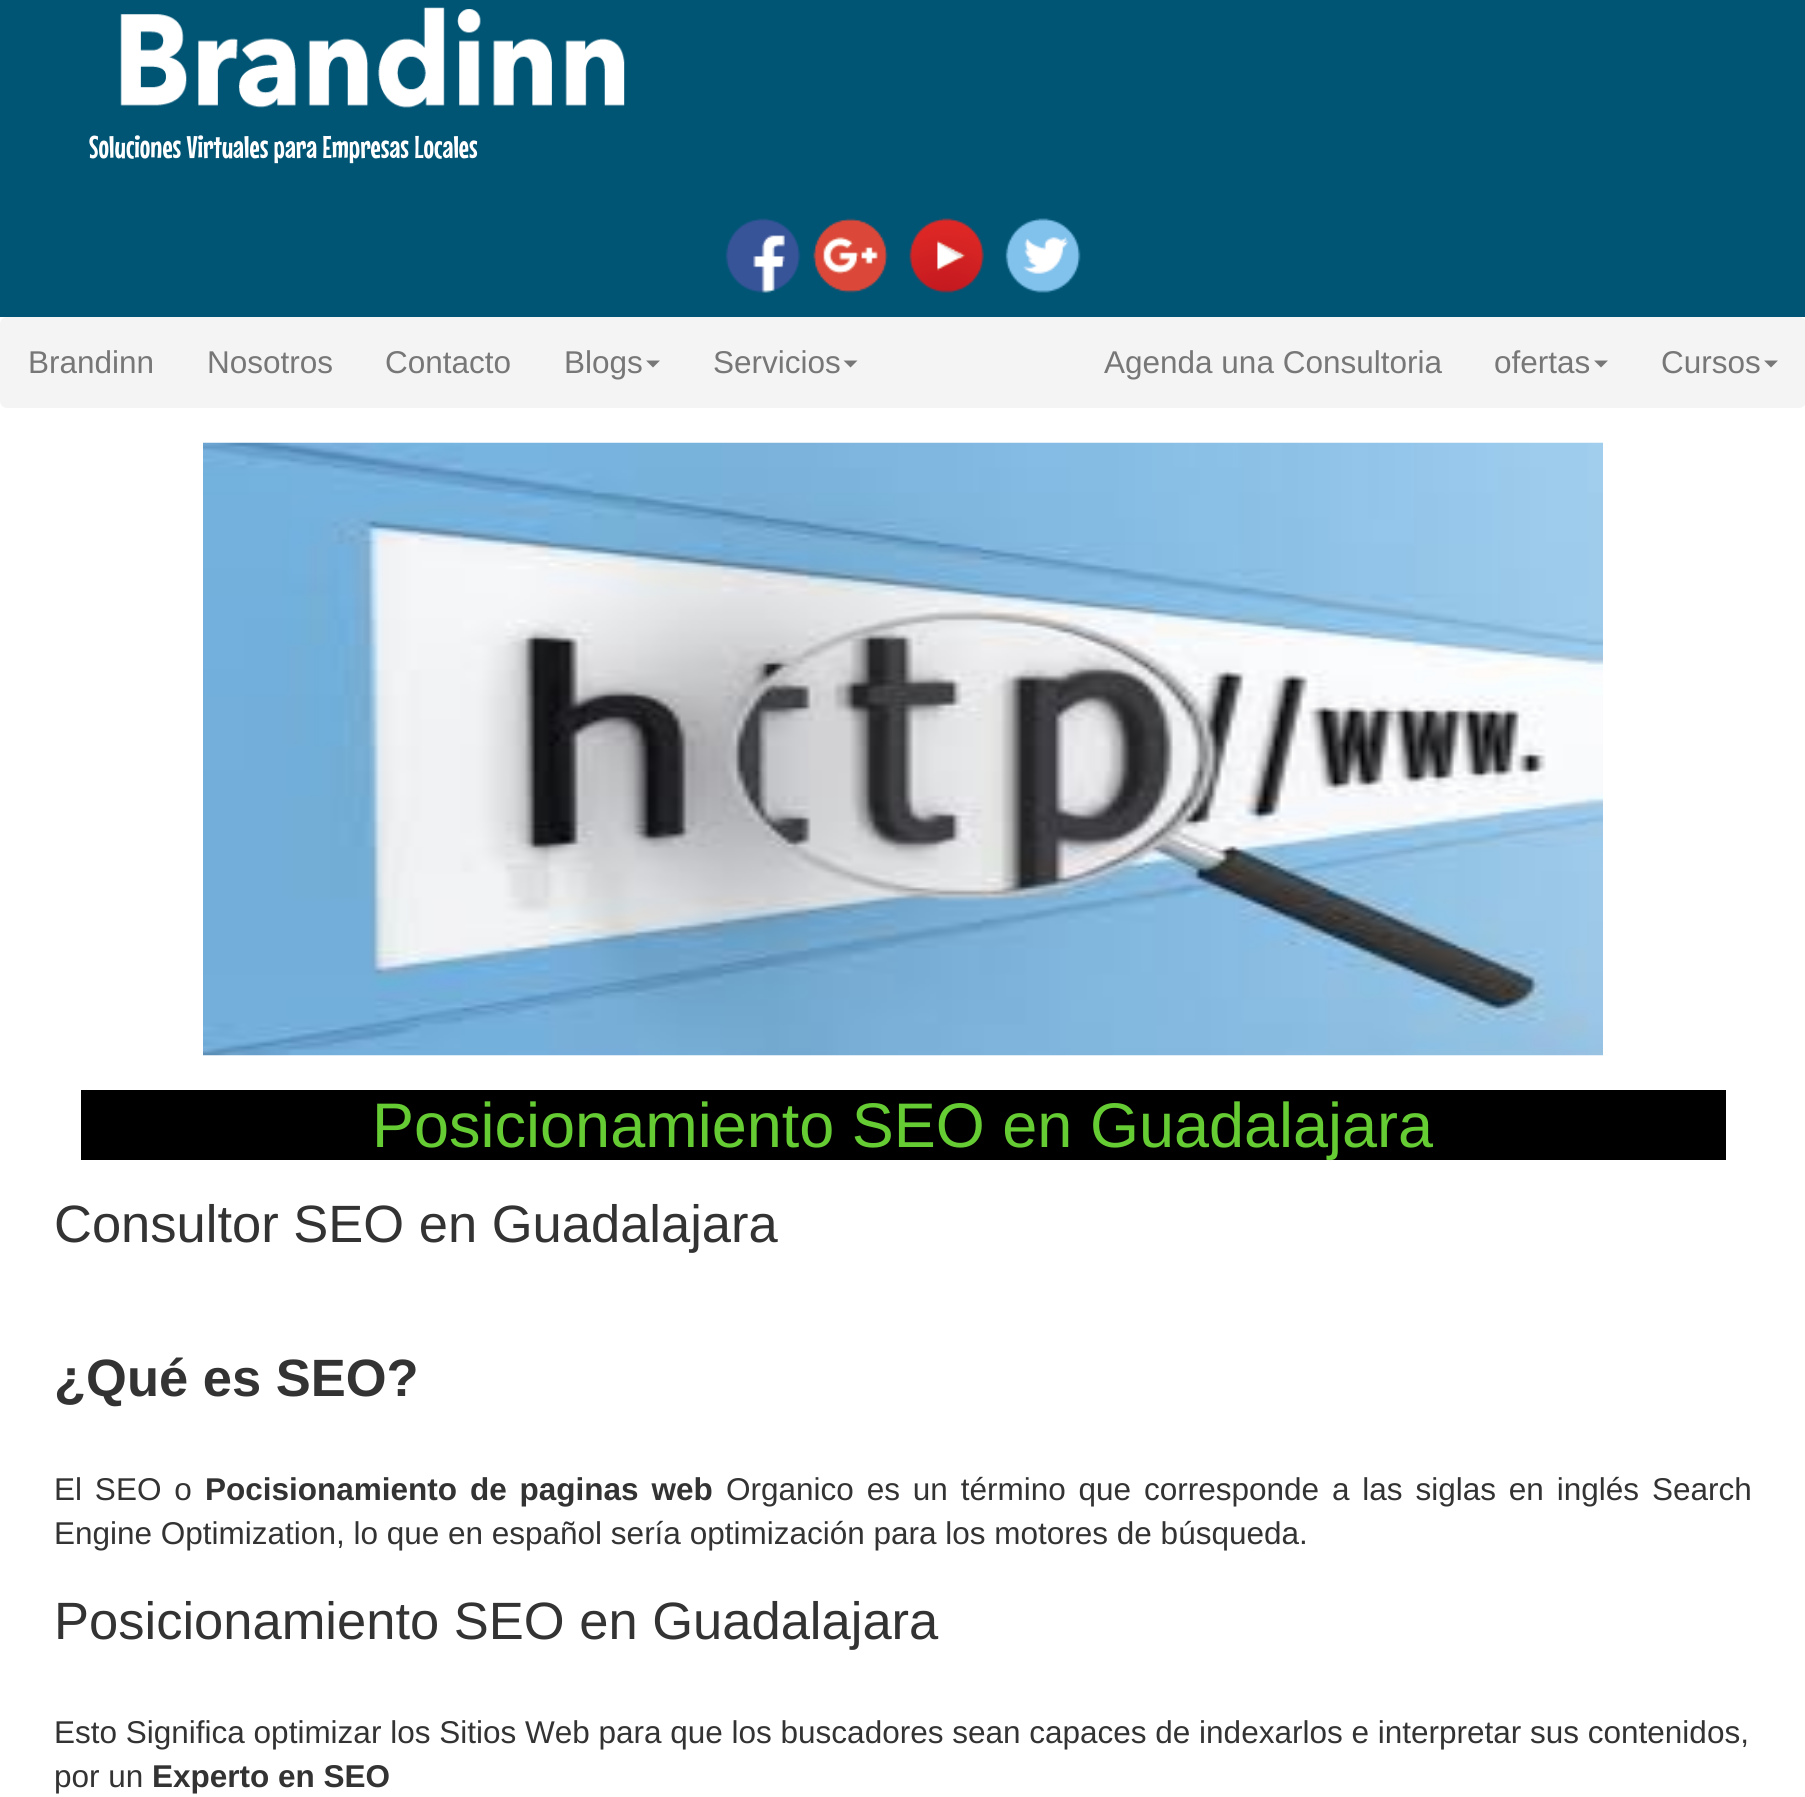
import math
import cairo



def draw_spaced(context, x, y, s, letter, word):
    context.move_to(x, y)
    for ch in s:
        context.show_text(ch)
        context.rel_move_to(letter + word * (ch == ' '), 0)


def rounded_rect(context, x, y, w, h, r):
    context.new_sub_path()
    for i, (u, v) in enumerate([(x + w - r, y + h - r), (x + r, y + h - r), (x + r, y + r), (x + w - r, y + r)]):
        context.arc(u, v, r, i * math.pi / 2, (i + 1) * math.pi / 2)
    context.close_path()


def draw_image(context, path, x, y, w, h):
    context.save()
    context.set_source_surface(cairo.ImageSurface.create_from_png(path), x, y)
    context.rectangle(x, y, w, h)
    context.fill()
    context.restore()


def draw(context):
    context.set_source_rgb(1, 1, 1)
    context.paint()
    context.set_source_rgb(0, 85 / 255, 117 / 255)
    context.rectangle(0, 0, 1805, 317)
    context.fill()
    draw_image(context, "images/1.png", 120, 7, 505, 101)
    draw_image(context, "images/2.png", 725, 218, 76, 75)
    draw_image(context, "images/3.png", 813, 218, 75, 75)
    draw_image(context, "images/4.png", 909, 218, 75, 75)
    draw_image(context, "images/5.png", 1005, 218, 76, 75)
    context.set_source_rgb(244 / 255, 244 / 255, 244 / 255)
    rounded_rect(context, 0, 317, 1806, 91, 7)
    context.fill()
    context.set_source_rgb(119 / 255, 119 / 255, 119 / 255)
    context.new_path()
    context.move_to(646, 360.5)
    context.line_to(660, 360.5)
    context.line_to(653, 367.5)
    context.close_path()
    context.fill()
    context.new_path()
    context.move_to(843.5, 360.5)
    context.line_to(857.5, 360.5)
    context.line_to(850.5, 367.5)
    context.close_path()
    context.fill()
    context.new_path()
    context.move_to(1594, 360.5)
    context.line_to(1608, 360.5)
    context.line_to(1601, 367.5)
    context.close_path()
    context.fill()
    context.new_path()
    context.move_to(1764, 360.5)
    context.line_to(1778, 360.5)
    context.line_to(1771, 367.5)
    context.close_path()
    context.fill()
    draw_image(context, "images/6.png", 203, 442, 1400, 614)
    context.set_source_rgb(0, 0, 0)
    context.rectangle(81, 1090, 1645, 70)
    context.fill()
    context.select_font_face("Mouse Memoirs")
    context.set_font_size(31.5)
    context.set_source_rgb(1, 1, 1)
    context.move_to(89, 158)
    context.show_text("Soluciones Virtuales para Empresas Locales")
    context.select_font_face("Liberation Sans")
    context.set_source_rgb(119 / 255, 119 / 255, 119 / 255)
    context.move_to(28, 373)
    context.show_text("Brandinn")
    context.move_to(207, 373)
    context.show_text("Nosotros")
    context.move_to(385, 373)
    context.show_text("Contacto")
    context.move_to(564, 373)
    context.show_text("Blogs")
    context.move_to(713, 373)
    context.show_text("Servicios")
    context.move_to(1104, 373)
    context.show_text("Agenda una Consultoria")
    context.move_to(1494, 373)
    context.show_text("ofertas")
    context.move_to(1661, 373)
    context.show_text("Cursos")
    context.set_font_size(63)
    context.set_source_rgb(102 / 255, 204 / 255, 51 / 255)
    context.move_to(372, 1147)
    context.show_text("Posicionamiento SEO en Guadalajara")
    context.set_font_size(52.5)
    context.set_source_rgb(51 / 255, 51 / 255, 51 / 255)
    context.move_to(54, 1242)
    context.show_text("Consultor SEO en Guadalajara")
    context.select_font_face("Liberation Sans", cairo.FontSlant.NORMAL, cairo.FontWeight.BOLD)
    context.move_to(54, 1396)
    context.show_text("¿Qué es SEO?")
    context.select_font_face("Liberation Sans")
    context.set_font_size(31.5)
    draw_spaced(context, 54, 1500, "El SEO o", 0, 4.1)
    context.select_font_face("Liberation Sans", cairo.FontSlant.NORMAL, cairo.FontWeight.BOLD)
    draw_spaced(context, 205, 1500, "Pocisionamiento de paginas web", 0, 4.1)
    context.select_font_face("Liberation Sans")
    draw_spaced(context, 726, 1500, "Organico es un término que corresponde a las siglas en inglés Search", 0, 4.1)
    context.move_to(54, 1544)
    context.show_text("Engine Optimization, lo que en español sería optimización para los motores de búsqueda.")
    context.set_font_size(52.5)
    context.move_to(54, 1639)
    context.show_text("Posicionamiento SEO en Guadalajara")
    context.set_font_size(31.5)
    context.move_to(54, 1743)
    context.show_text("Esto Significa optimizar los Sitios Web para que los buscadores sean capaces de indexarlos e interpretar sus contenidos,")
    context.move_to(54, 1787)
    context.show_text("por un")
    context.select_font_face("Liberation Sans", cairo.FontSlant.NORMAL, cairo.FontWeight.BOLD)
    context.move_to(152, 1787)
    context.show_text("Experto en SEO")


surface = cairo.ImageSurface(cairo.Format.RGB24, 1805, 1797)
context = cairo.Context(surface)
options = cairo.FontOptions()
options.set_hint_metrics(cairo.HintMetrics.OFF)
options.set_hint_style(cairo.HintStyle.NONE)
context.set_font_options(options)
context.set_miter_limit(4)
draw(context)
surface.write_to_png("out.png")
